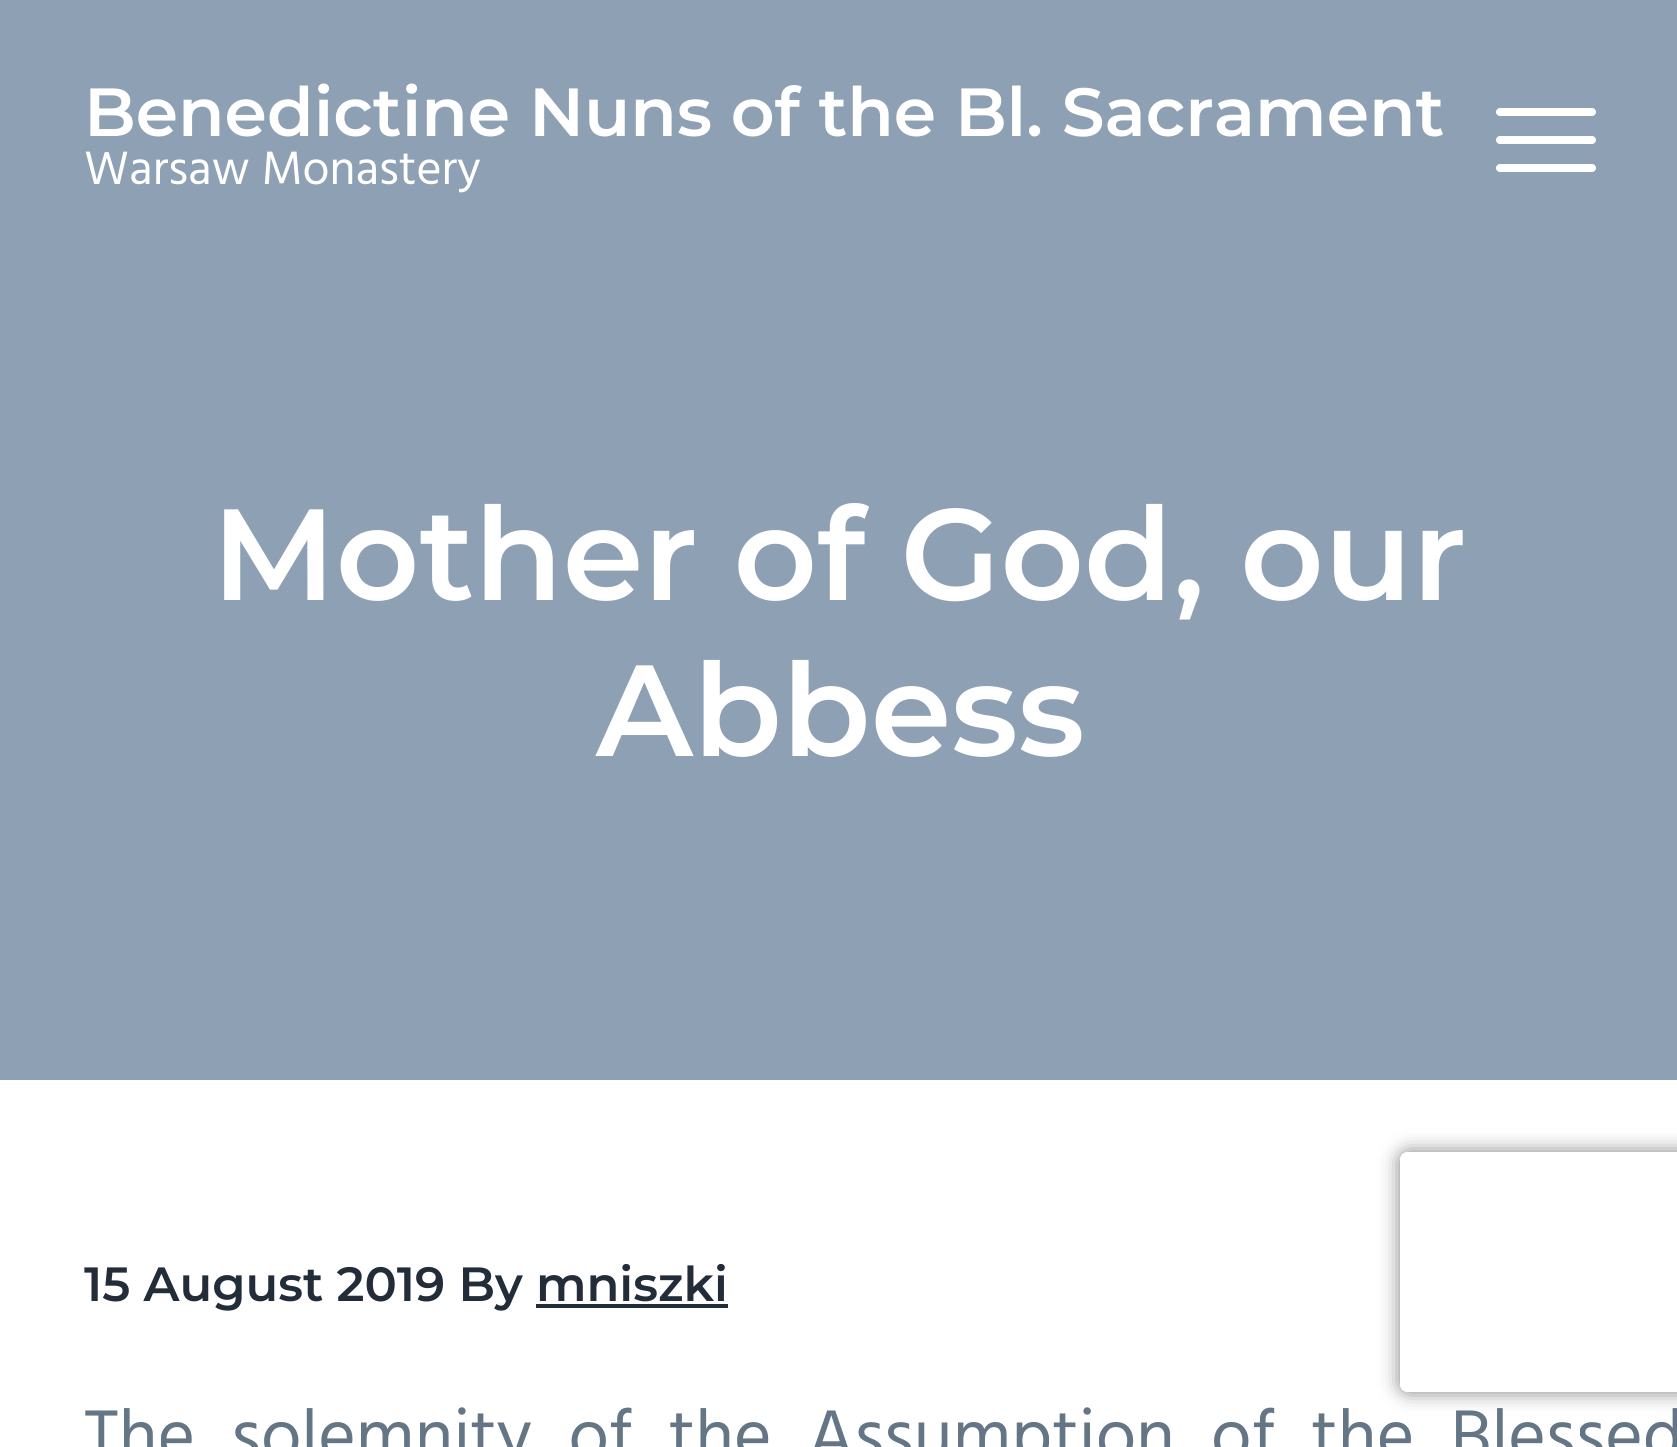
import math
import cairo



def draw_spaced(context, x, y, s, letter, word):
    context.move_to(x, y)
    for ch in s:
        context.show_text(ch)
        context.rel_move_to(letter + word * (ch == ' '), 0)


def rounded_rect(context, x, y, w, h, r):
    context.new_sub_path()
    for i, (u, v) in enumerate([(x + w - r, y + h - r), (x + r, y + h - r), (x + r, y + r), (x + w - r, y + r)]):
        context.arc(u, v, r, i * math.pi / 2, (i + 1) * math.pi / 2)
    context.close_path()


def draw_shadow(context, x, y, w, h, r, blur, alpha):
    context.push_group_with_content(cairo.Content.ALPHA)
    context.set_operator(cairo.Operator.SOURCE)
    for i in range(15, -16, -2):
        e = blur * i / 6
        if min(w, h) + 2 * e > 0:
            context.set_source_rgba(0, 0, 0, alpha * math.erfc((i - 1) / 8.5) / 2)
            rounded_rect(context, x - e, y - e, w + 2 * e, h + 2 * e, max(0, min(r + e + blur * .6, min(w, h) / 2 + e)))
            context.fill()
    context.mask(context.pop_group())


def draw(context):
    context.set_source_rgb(1, 1, 1)
    context.paint()
    context.set_source_rgb(142 / 255, 160 / 255, 180 / 255)
    context.rectangle(0, 0, 1677, 1080)
    context.fill()
    context.set_source_rgb(1, 1, 1)
    rounded_rect(context, 1496, 136, 100, 8, 4)
    context.fill()
    rounded_rect(context, 1496, 108, 100, 8, 4)
    context.fill()
    rounded_rect(context, 1496, 164, 100, 8, 4)
    context.fill()
    context.set_source_rgb(35 / 255, 44 / 255, 57 / 255)
    context.rectangle(536, 1304, 192, 4)
    context.fill()
    context.save()
    context.set_fill_rule(cairo.FillRule.EVEN_ODD)
    context.new_path()
    context.move_to(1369, 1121)
    context.line_to(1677, 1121)
    context.line_to(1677, 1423)
    context.line_to(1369, 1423)
    context.close_path()
    context.move_to(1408, 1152)
    context.line_to(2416, 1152)
    context.curve_to(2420.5, 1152, 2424, 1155.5, 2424, 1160)
    context.line_to(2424, 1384)
    context.curve_to(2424, 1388.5, 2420.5, 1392, 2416, 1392)
    context.line_to(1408, 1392)
    context.curve_to(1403.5, 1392, 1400, 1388.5, 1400, 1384)
    context.line_to(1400, 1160)
    context.curve_to(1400, 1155.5, 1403.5, 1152, 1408, 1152)
    context.close_path()
    context.clip()
    context.set_source_rgb(128 / 255, 128 / 255, 128 / 255)
    draw_shadow(context, 1400, 1152, 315, 240, 8, 10, 1)
    context.restore()
    context.select_font_face("Montserrat Thin")
    context.set_font_size(68)
    context.set_source_rgb(1, 1, 1)
    context.move_to(84, 136)
    context.show_text("Benedictine Nuns of the Bl. Sacrament")
    context.select_font_face("Hind")
    context.set_font_size(48)
    context.move_to(84, 184)
    context.show_text("Warsaw Monastery")
    context.select_font_face("Montserrat Thin")
    context.set_font_size(129.5)
    context.move_to(212, 600)
    context.show_text("Mother of God, our")
    context.move_to(596, 756)
    context.show_text("Abbess")
    context.set_font_size(48)
    context.set_source_rgb(35 / 255, 44 / 255, 57 / 255)
    context.move_to(84, 1301)
    context.show_text("15 August 2019 By mniszki")
    context.select_font_face("Hind")
    context.set_font_size(72)
    context.set_source_rgb(100 / 255, 117 / 255, 133 / 255)
    draw_spaced(context, 84, 1459, "The solemnity of the Assumption of the Blessed", 0, 18.5)


surface = cairo.ImageSurface(cairo.Format.RGB24, 1677, 1447)
context = cairo.Context(surface)
options = cairo.FontOptions()
options.set_hint_metrics(cairo.HintMetrics.OFF)
options.set_hint_style(cairo.HintStyle.NONE)
context.set_font_options(options)
context.set_miter_limit(4)
draw(context)
surface.write_to_png("out.png")
